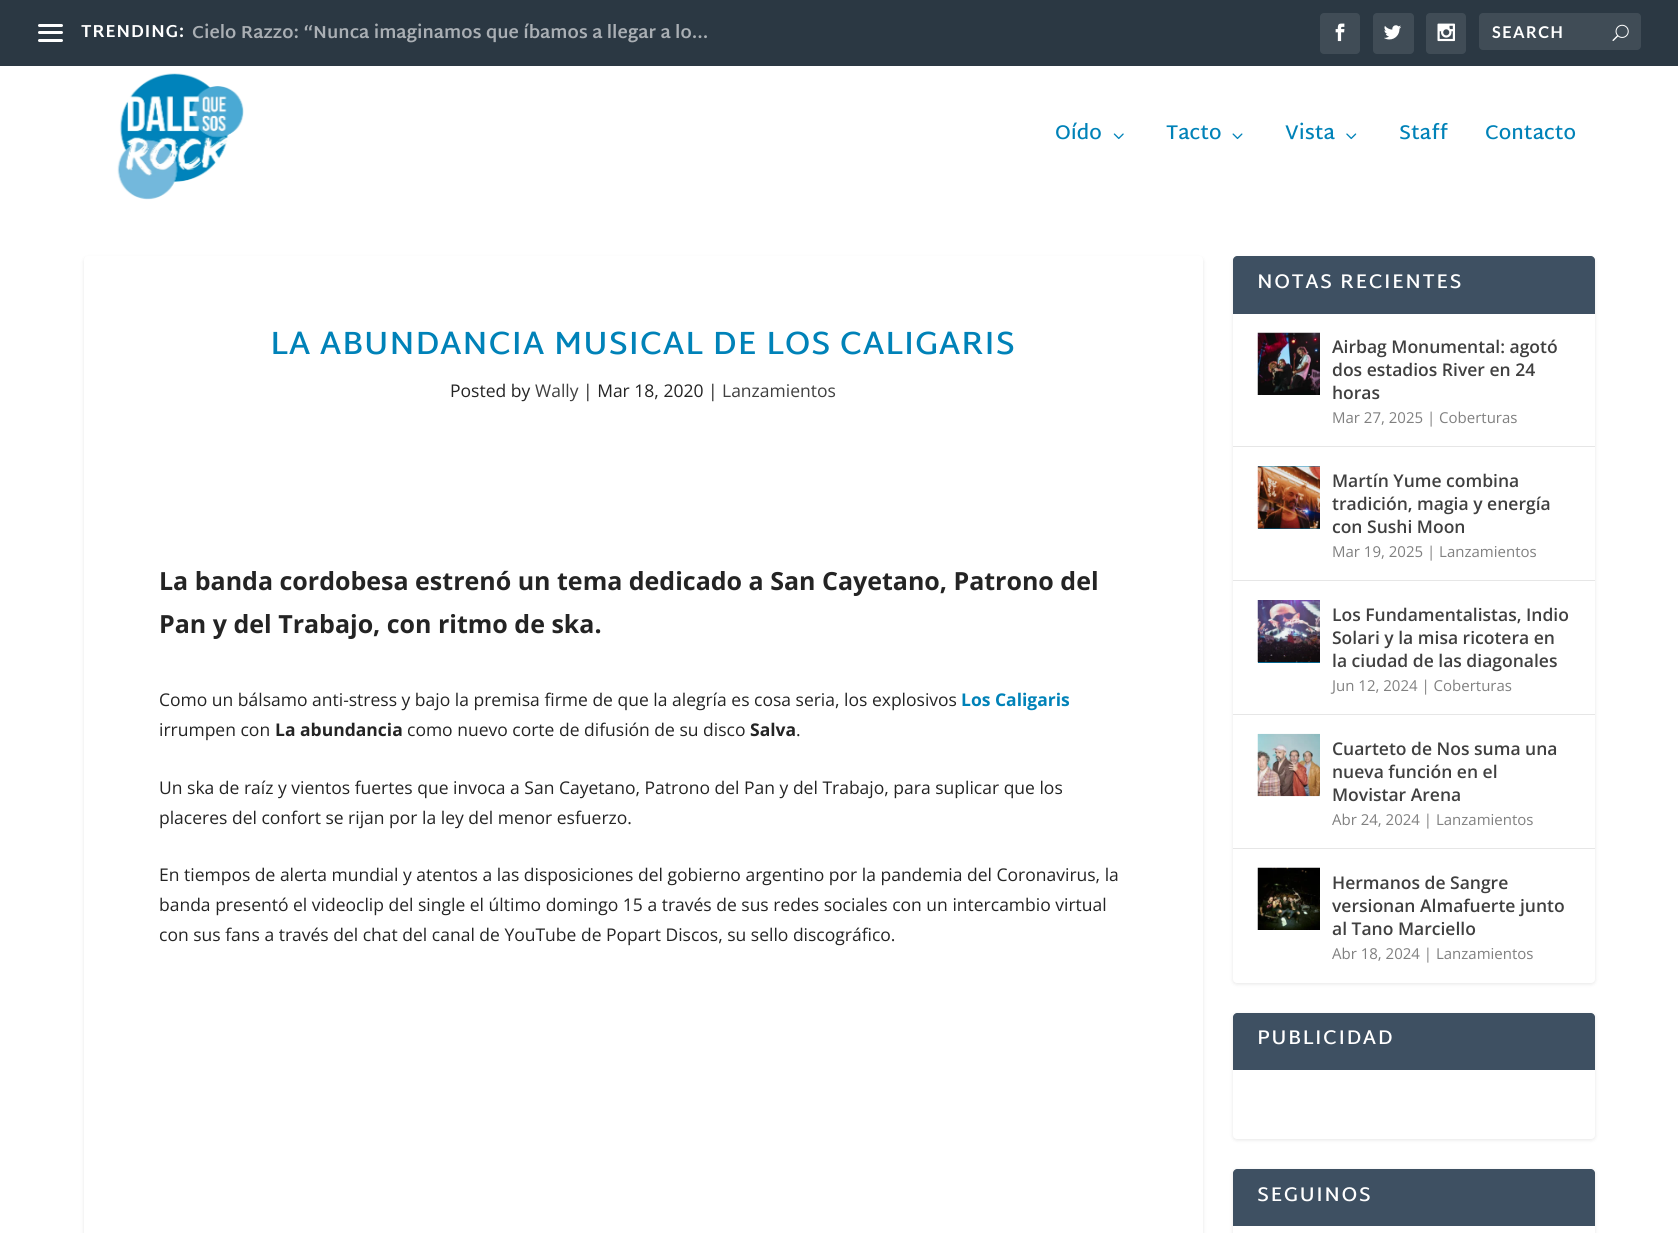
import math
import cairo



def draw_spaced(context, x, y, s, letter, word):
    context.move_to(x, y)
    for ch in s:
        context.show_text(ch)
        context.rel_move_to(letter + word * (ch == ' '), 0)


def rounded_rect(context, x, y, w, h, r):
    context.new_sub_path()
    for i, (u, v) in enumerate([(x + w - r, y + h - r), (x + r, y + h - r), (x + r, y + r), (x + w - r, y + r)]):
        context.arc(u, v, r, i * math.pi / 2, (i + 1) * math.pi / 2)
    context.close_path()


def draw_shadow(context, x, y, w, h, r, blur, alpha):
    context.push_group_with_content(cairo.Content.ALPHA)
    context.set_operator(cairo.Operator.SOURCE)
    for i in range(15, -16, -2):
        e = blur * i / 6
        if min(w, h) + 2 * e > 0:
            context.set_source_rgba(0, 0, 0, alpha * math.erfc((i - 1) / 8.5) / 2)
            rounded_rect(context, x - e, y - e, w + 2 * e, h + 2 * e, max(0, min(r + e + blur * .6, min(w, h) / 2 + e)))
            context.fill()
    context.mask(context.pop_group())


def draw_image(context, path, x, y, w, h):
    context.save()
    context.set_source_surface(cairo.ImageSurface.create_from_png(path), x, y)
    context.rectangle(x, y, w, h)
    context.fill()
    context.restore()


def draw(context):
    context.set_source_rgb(1, 1, 1)
    context.paint()
    context.set_source_rgb(43 / 255, 56 / 255, 67 / 255)
    context.rectangle(0, 0, 1678, 66)
    context.fill()
    context.set_source_rgb(1, 1, 1)
    rounded_rect(context, 38, 24, 25, 3, 1.5)
    context.fill()
    rounded_rect(context, 38, 31, 25, 3, 1.5)
    context.fill()
    rounded_rect(context, 38, 39, 25, 3, 1.5)
    context.fill()
    context.set_source_rgb(64 / 255, 76 / 255, 86 / 255)
    rounded_rect(context, 1320, 13, 40, 41, 4)
    context.fill()
    draw_image(context, "images/1.png", 1335, 23, 10, 19)
    rounded_rect(context, 1373, 13, 41, 41, 4)
    context.fill()
    draw_image(context, "images/2.png", 1384, 25, 17, 15)
    rounded_rect(context, 1426, 13, 40, 41, 4)
    context.fill()
    draw_image(context, "images/3.png", 1437, 23, 18, 19)
    rounded_rect(context, 1479, 13, 162, 37, 4)
    context.fill()
    draw_image(context, "images/4.png", 1612, 24, 17, 17)
    draw_image(context, "images/5.png", 117, 73, 127, 127)
    draw_image(context, "images/6.png", 1113, 133, 11, 7)
    draw_image(context, "images/7.png", 1232, 133, 11, 7)
    draw_image(context, "images/8.png", 1346, 133, 11, 7)
    context.set_source_rgb(0, 0, 0)
    draw_shadow(context, 84, 258, 1119, 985, 4, 2, 0.1)
    context.set_source_rgb(1, 1, 1)
    rounded_rect(context, 84, 256, 1119, 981, 4)
    context.fill()
    context.set_source_rgb(0, 0, 0)
    draw_shadow(context, 1233, 258, 362, 726, 4, 2, 0.1)
    context.set_source_rgb(1, 1, 1)
    rounded_rect(context, 1233, 256, 362, 727, 4)
    context.fill()
    context.set_source_rgb(62 / 255, 80 / 255, 98 / 255)
    context.new_path()
    context.move_to(1237, 256)
    context.line_to(1591, 256)
    context.curve_to(1593, 256, 1595, 258, 1595, 260)
    context.line_to(1595, 314)
    context.line_to(1233, 314)
    context.line_to(1233, 260)
    context.curve_to(1233, 258, 1235, 256, 1237, 256)
    context.close_path()
    context.fill()
    context.set_source_rgb(230 / 255, 230 / 255, 230 / 255)
    context.rectangle(1233, 446, 362, 1)
    context.fill()
    draw_image(context, "images/9.png", 1257, 332, 63, 63)
    context.rectangle(1233, 580, 362, 1)
    context.fill()
    context.set_source_rgb(0, 130 / 255, 184 / 255)
    context.rectangle(1258, 466, 62, 63)
    context.fill()
    draw_image(context, "images/10.png", 1257, 466, 63, 63)
    context.set_source_rgb(230 / 255, 230 / 255, 230 / 255)
    context.rectangle(1233, 714, 362, 1)
    context.fill()
    context.set_source_rgb(0, 130 / 255, 184 / 255)
    context.rectangle(1258, 662, 62, 1)
    context.fill()
    draw_image(context, "images/11.png", 1257, 600, 63, 63)
    context.set_source_rgb(230 / 255, 230 / 255, 230 / 255)
    context.rectangle(1233, 848, 362, 1)
    context.fill()
    draw_image(context, "images/12.png", 1257, 733, 63, 64)
    draw_image(context, "images/13.png", 1257, 867, 63, 63)
    context.set_source_rgb(0, 0, 0)
    draw_shadow(context, 1233, 1014, 362, 126, 4, 2, 0.1)
    context.set_source_rgb(1, 1, 1)
    rounded_rect(context, 1233, 1013, 362, 126, 4)
    context.fill()
    context.set_source_rgb(62 / 255, 80 / 255, 98 / 255)
    context.new_path()
    context.move_to(1237, 1013)
    context.line_to(1591, 1013)
    context.curve_to(1593, 1013, 1595, 1015, 1595, 1017)
    context.line_to(1595, 1070)
    context.line_to(1233, 1070)
    context.line_to(1233, 1017)
    context.curve_to(1233, 1015, 1235, 1013, 1237, 1013)
    context.close_path()
    context.fill()
    context.save()
    context.set_fill_rule(cairo.FillRule.EVEN_ODD)
    context.new_path()
    context.move_to(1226, 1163)
    context.line_to(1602, 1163)
    context.line_to(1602, 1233)
    context.line_to(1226, 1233)
    context.close_path()
    context.move_to(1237, 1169)
    context.line_to(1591, 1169)
    context.curve_to(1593, 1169, 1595, 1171, 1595, 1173)
    context.line_to(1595, 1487)
    context.curve_to(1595, 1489, 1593, 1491, 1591, 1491)
    context.line_to(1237, 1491)
    context.curve_to(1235, 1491, 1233, 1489, 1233, 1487)
    context.line_to(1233, 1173)
    context.curve_to(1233, 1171, 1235, 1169, 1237, 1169)
    context.close_path()
    context.clip()
    context.set_source_rgb(0, 0, 0)
    draw_shadow(context, 1233, 1170, 362, 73, 4, 2, 0.1)
    context.restore()
    context.new_path()
    context.move_to(1237, 1169)
    context.line_to(1591, 1169)
    context.curve_to(1593, 1169, 1595, 1171, 1595, 1173)
    context.line_to(1595, 1226)
    context.line_to(1233, 1226)
    context.line_to(1233, 1173)
    context.curve_to(1233, 1171, 1235, 1169, 1237, 1169)
    context.close_path()
    context.fill()
    context.select_font_face("Martel Sans", cairo.FontSlant.NORMAL, cairo.FontWeight.BOLD)
    context.set_font_size(17.5)
    context.set_source_rgb(1, 1, 1)
    draw_spaced(context, 81, 37, "TRENDING:", 0.6, 0)
    context.set_source_rgb(170 / 255, 175 / 255, 180 / 255)
    context.move_to(192, 38)
    context.show_text("Cielo Razzo: “Nunca imaginamos que íbamos a llegar a lo...")
    context.select_font_face("Lato", cairo.FontSlant.NORMAL, cairo.FontWeight.BOLD)
    context.set_font_size(16.25)
    context.set_source_rgb(1, 1, 1)
    draw_spaced(context, 1492, 38, "SEARCH", 1.5, 0)
    context.select_font_face("Martel Sans SemiBold")
    context.set_font_size(20)
    context.set_source_rgb(0, 130 / 255, 184 / 255)
    context.move_to(1055, 139)
    context.show_text("Oído")
    context.move_to(1166, 139)
    context.show_text("Tacto")
    context.move_to(1285, 139)
    context.show_text("Vista")
    context.move_to(1399, 139)
    context.show_text("Staff")
    context.move_to(1485, 139)
    context.show_text("Contacto")
    context.set_font_size(32.5)
    draw_spaced(context, 270, 354, "LA ABUNDANCIA MUSICAL DE LOS CALIGARIS", 0.6, 0)
    context.select_font_face("Open Sans")
    context.set_font_size(17.5)
    context.set_source_rgb(36 / 255, 36 / 255, 36 / 255)
    context.move_to(450, 397)
    context.show_text("Posted by")
    context.set_source_rgb(64 / 255, 64 / 255, 64 / 255)
    context.move_to(535, 397)
    context.show_text("Wally")
    context.set_source_rgb(36 / 255, 36 / 255, 36 / 255)
    context.move_to(583, 397)
    context.show_text("| Mar 18, 2020 |")
    context.set_source_rgb(64 / 255, 64 / 255, 64 / 255)
    context.move_to(722, 397)
    context.show_text("Lanzamientos")
    context.select_font_face("Open Sans", cairo.FontSlant.NORMAL, cairo.FontWeight.BOLD)
    context.set_font_size(25)
    context.set_source_rgb(36 / 255, 36 / 255, 36 / 255)
    context.move_to(159, 590)
    context.show_text("La banda cordobesa estrenó un tema dedicado a San Cayetano, Patrono del")
    context.move_to(159, 633)
    context.show_text("Pan y del Trabajo, con ritmo de ska.")
    context.select_font_face("Open Sans")
    context.set_font_size(17.5)
    context.move_to(159, 706)
    context.show_text("Como un bálsamo anti-stress y bajo la premisa firme de que la alegría es cosa seria, los explosivos")
    context.select_font_face("Open Sans", cairo.FontSlant.NORMAL, cairo.FontWeight.BOLD)
    context.set_source_rgb(0, 130 / 255, 184 / 255)
    context.move_to(961, 706)
    context.show_text("Los Caligaris")
    context.select_font_face("Open Sans")
    context.set_source_rgb(36 / 255, 36 / 255, 36 / 255)
    context.move_to(159, 736)
    context.show_text("irrumpen con")
    context.select_font_face("Open Sans", cairo.FontSlant.NORMAL, cairo.FontWeight.BOLD)
    context.move_to(275, 736)
    context.show_text("La abundancia")
    context.select_font_face("Open Sans")
    context.move_to(407, 736)
    context.show_text("como nuevo corte de difusión de su disco")
    context.select_font_face("Open Sans", cairo.FontSlant.NORMAL, cairo.FontWeight.BOLD)
    context.move_to(750, 736)
    context.show_text("Salva")
    context.select_font_face("Open Sans")
    context.move_to(796, 736)
    context.show_text(".")
    context.move_to(159, 794)
    context.show_text("Un ska de raíz y vientos fuertes que invoca a San Cayetano, Patrono del Pan y del Trabajo, para suplicar que los")
    context.move_to(159, 824)
    context.show_text("placeres del confort se rijan por la ley del menor esfuerzo.")
    context.move_to(159, 881)
    context.show_text("En tiempos de alerta mundial y atentos a las disposiciones del gobierno argentino por la pandemia del Coronavirus, la")
    context.move_to(159, 911)
    context.show_text("banda presentó el videoclip del single el último domingo 15 a través de sus redes sociales con un intercambio virtual")
    context.move_to(159, 941)
    context.show_text("con sus fans a través del chat del canal de YouTube de Popart Discos, su sello discográfico.")
    context.select_font_face("Martel Sans SemiBold")
    context.set_font_size(20)
    context.set_source_rgb(1, 1, 1)
    draw_spaced(context, 1257, 288, "NOTAS RECIENTES", 1.5, 0)
    context.select_font_face("Open Sans SemiBold")
    context.set_font_size(17.5)
    context.set_source_rgb(64 / 255, 64 / 255, 64 / 255)
    context.move_to(1332, 353)
    context.show_text("Airbag Monumental: agotó")
    context.move_to(1332, 376)
    context.show_text("dos estadios River en 24")
    context.move_to(1332, 399)
    context.show_text("horas")
    context.select_font_face("Open Sans")
    context.set_font_size(15)
    context.set_source_rgb(128 / 255, 128 / 255, 128 / 255)
    context.move_to(1332, 423)
    context.show_text("Mar 27, 2025 | Coberturas")
    context.select_font_face("Open Sans SemiBold")
    context.set_font_size(17.5)
    context.set_source_rgb(64 / 255, 64 / 255, 64 / 255)
    context.move_to(1332, 487)
    context.show_text("Martín Yume combina")
    context.move_to(1332, 510)
    context.show_text("tradición, magia y energía")
    context.move_to(1332, 533)
    context.show_text("con Sushi Moon")
    context.select_font_face("Open Sans")
    context.set_font_size(15)
    context.set_source_rgb(128 / 255, 128 / 255, 128 / 255)
    context.move_to(1332, 557)
    context.show_text("Mar 19, 2025 | Lanzamientos")
    context.select_font_face("Open Sans SemiBold")
    context.set_font_size(17.5)
    context.set_source_rgb(64 / 255, 64 / 255, 64 / 255)
    context.move_to(1332, 621)
    context.show_text("Los Fundamentalistas, Indio")
    context.move_to(1332, 644)
    context.show_text("Solari y la misa ricotera en")
    context.move_to(1332, 667)
    context.show_text("la ciudad de las diagonales")
    context.select_font_face("Open Sans")
    context.set_font_size(15)
    context.set_source_rgb(128 / 255, 128 / 255, 128 / 255)
    context.move_to(1332, 691)
    context.show_text("Jun 12, 2024 | Coberturas")
    context.select_font_face("Open Sans SemiBold")
    context.set_font_size(17.5)
    context.set_source_rgb(64 / 255, 64 / 255, 64 / 255)
    context.move_to(1332, 755)
    context.show_text("Cuarteto de Nos suma una")
    context.move_to(1332, 778)
    context.show_text("nueva función en el")
    context.move_to(1332, 801)
    context.show_text("Movistar Arena")
    context.select_font_face("Open Sans")
    context.set_font_size(15)
    context.set_source_rgb(128 / 255, 128 / 255, 128 / 255)
    context.move_to(1332, 825)
    context.show_text("Abr 24, 2024 | Lanzamientos")
    context.select_font_face("Open Sans SemiBold")
    context.set_font_size(17.5)
    context.set_source_rgb(64 / 255, 64 / 255, 64 / 255)
    context.move_to(1332, 889)
    context.show_text("Hermanos de Sangre")
    context.move_to(1332, 912)
    context.show_text("versionan Almafuerte junto")
    context.move_to(1332, 935)
    context.show_text("al Tano Marciello")
    context.select_font_face("Open Sans")
    context.set_font_size(15)
    context.set_source_rgb(128 / 255, 128 / 255, 128 / 255)
    context.move_to(1332, 959)
    context.show_text("Abr 18, 2024 | Lanzamientos")
    context.select_font_face("Martel Sans SemiBold")
    context.set_font_size(20)
    context.set_source_rgb(1, 1, 1)
    draw_spaced(context, 1257, 1044, "PUBLICIDAD", 1.5, 0)
    draw_spaced(context, 1257, 1201, "SEGUINOS", 1.5, 0)


surface = cairo.ImageSurface(cairo.Format.RGB24, 1678, 1233)
context = cairo.Context(surface)
options = cairo.FontOptions()
options.set_hint_metrics(cairo.HintMetrics.OFF)
options.set_hint_style(cairo.HintStyle.NONE)
context.set_font_options(options)
context.set_miter_limit(4)
draw(context)
surface.write_to_png("out.png")
